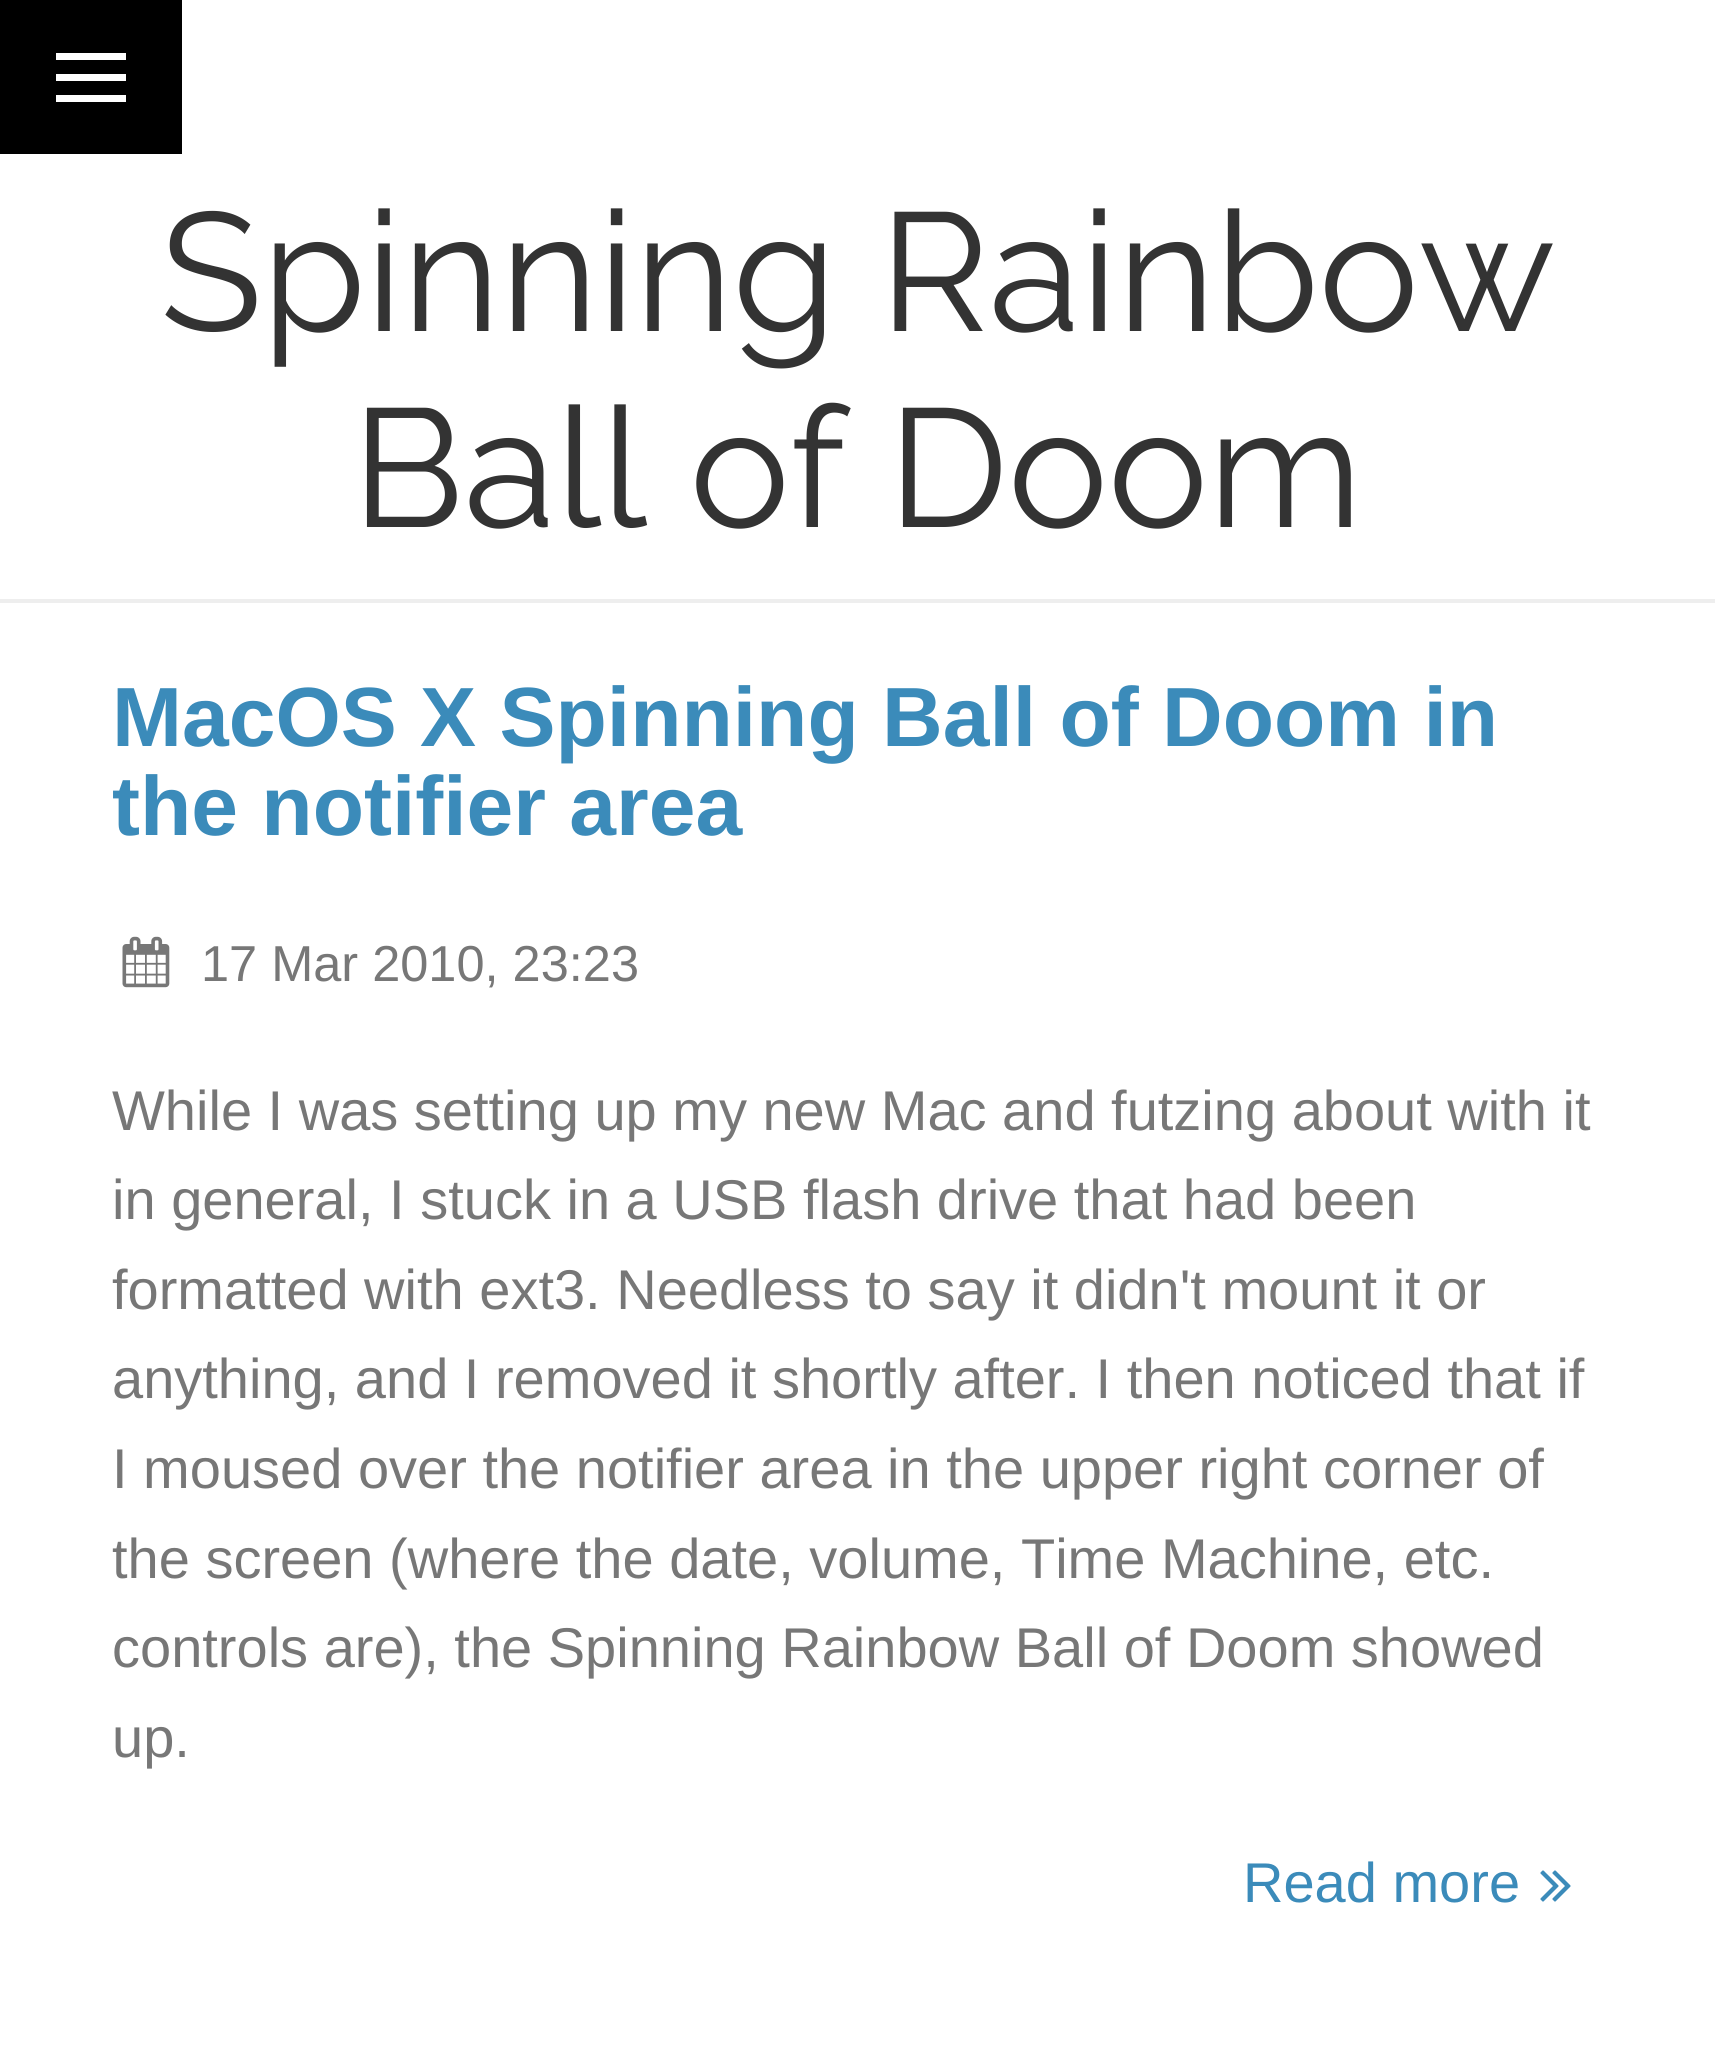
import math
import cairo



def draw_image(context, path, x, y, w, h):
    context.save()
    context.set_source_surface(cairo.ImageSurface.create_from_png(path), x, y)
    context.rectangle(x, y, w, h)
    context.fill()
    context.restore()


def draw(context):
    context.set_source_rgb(1, 1, 1)
    context.paint()
    context.set_source_rgb(0, 0, 0)
    context.rectangle(0, 0, 182, 154)
    context.fill()
    context.set_source_rgb(1, 1, 1)
    context.rectangle(56, 74, 70, 7)
    context.fill()
    context.rectangle(56, 53, 70, 7)
    context.fill()
    context.rectangle(56, 95, 70, 7)
    context.fill()
    context.set_source_rgb(238 / 255, 238 / 255, 238 / 255)
    context.rectangle(0, 599, 1715, 4)
    context.fill()
    draw_image(context, "images/1.png", 122, 936, 48, 52)
    draw_image(context, "images/2.png", 1540, 1870, 31, 32)
    context.select_font_face("Raleway Thin")
    context.set_font_size(168)
    context.set_source_rgb(51 / 255, 51 / 255, 51 / 255)
    context.move_to(160, 331)
    context.show_text("Spinning Rainbow")
    context.move_to(352, 527)
    context.show_text("Ball of Doom")
    context.select_font_face("Liberation Sans", cairo.FontSlant.NORMAL, cairo.FontWeight.BOLD)
    context.set_font_size(84)
    context.set_source_rgb(59 / 255, 139 / 255, 186 / 255)
    context.move_to(112, 746)
    context.show_text("MacOS X Spinning Ball of Doom in")
    context.move_to(112, 835)
    context.show_text("the notifier area")
    context.select_font_face("Liberation Sans")
    context.set_font_size(50.5)
    context.set_source_rgb(119 / 255, 119 / 255, 119 / 255)
    context.move_to(201, 981)
    context.show_text("17 Mar 2010, 23:23")
    context.set_font_size(56)
    context.move_to(112, 1130)
    context.show_text("While I was setting up my new Mac and futzing about with it")
    context.move_to(112, 1219)
    context.show_text("in general, I stuck in a USB flash drive that had been")
    context.move_to(112, 1309)
    context.show_text("formatted with ext3. Needless to say it didn't mount it or")
    context.move_to(112, 1398)
    context.show_text("anything, and I removed it shortly after. I then noticed that if")
    context.move_to(112, 1488)
    context.show_text("I moused over the notifier area in the upper right corner of")
    context.move_to(112, 1578)
    context.show_text("the screen (where the date, volume, Time Machine, etc.")
    context.move_to(112, 1667)
    context.show_text("controls are), the Spinning Rainbow Ball of Doom showed")
    context.move_to(112, 1757)
    context.show_text("up.")
    context.set_source_rgb(59 / 255, 139 / 255, 186 / 255)
    context.move_to(1243, 1902)
    context.show_text("Read more")


surface = cairo.ImageSurface(cairo.Format.RGB24, 1715, 2055)
context = cairo.Context(surface)
options = cairo.FontOptions()
options.set_hint_metrics(cairo.HintMetrics.OFF)
options.set_hint_style(cairo.HintStyle.NONE)
context.set_font_options(options)
context.set_miter_limit(4)
draw(context)
surface.write_to_png("out.png")
